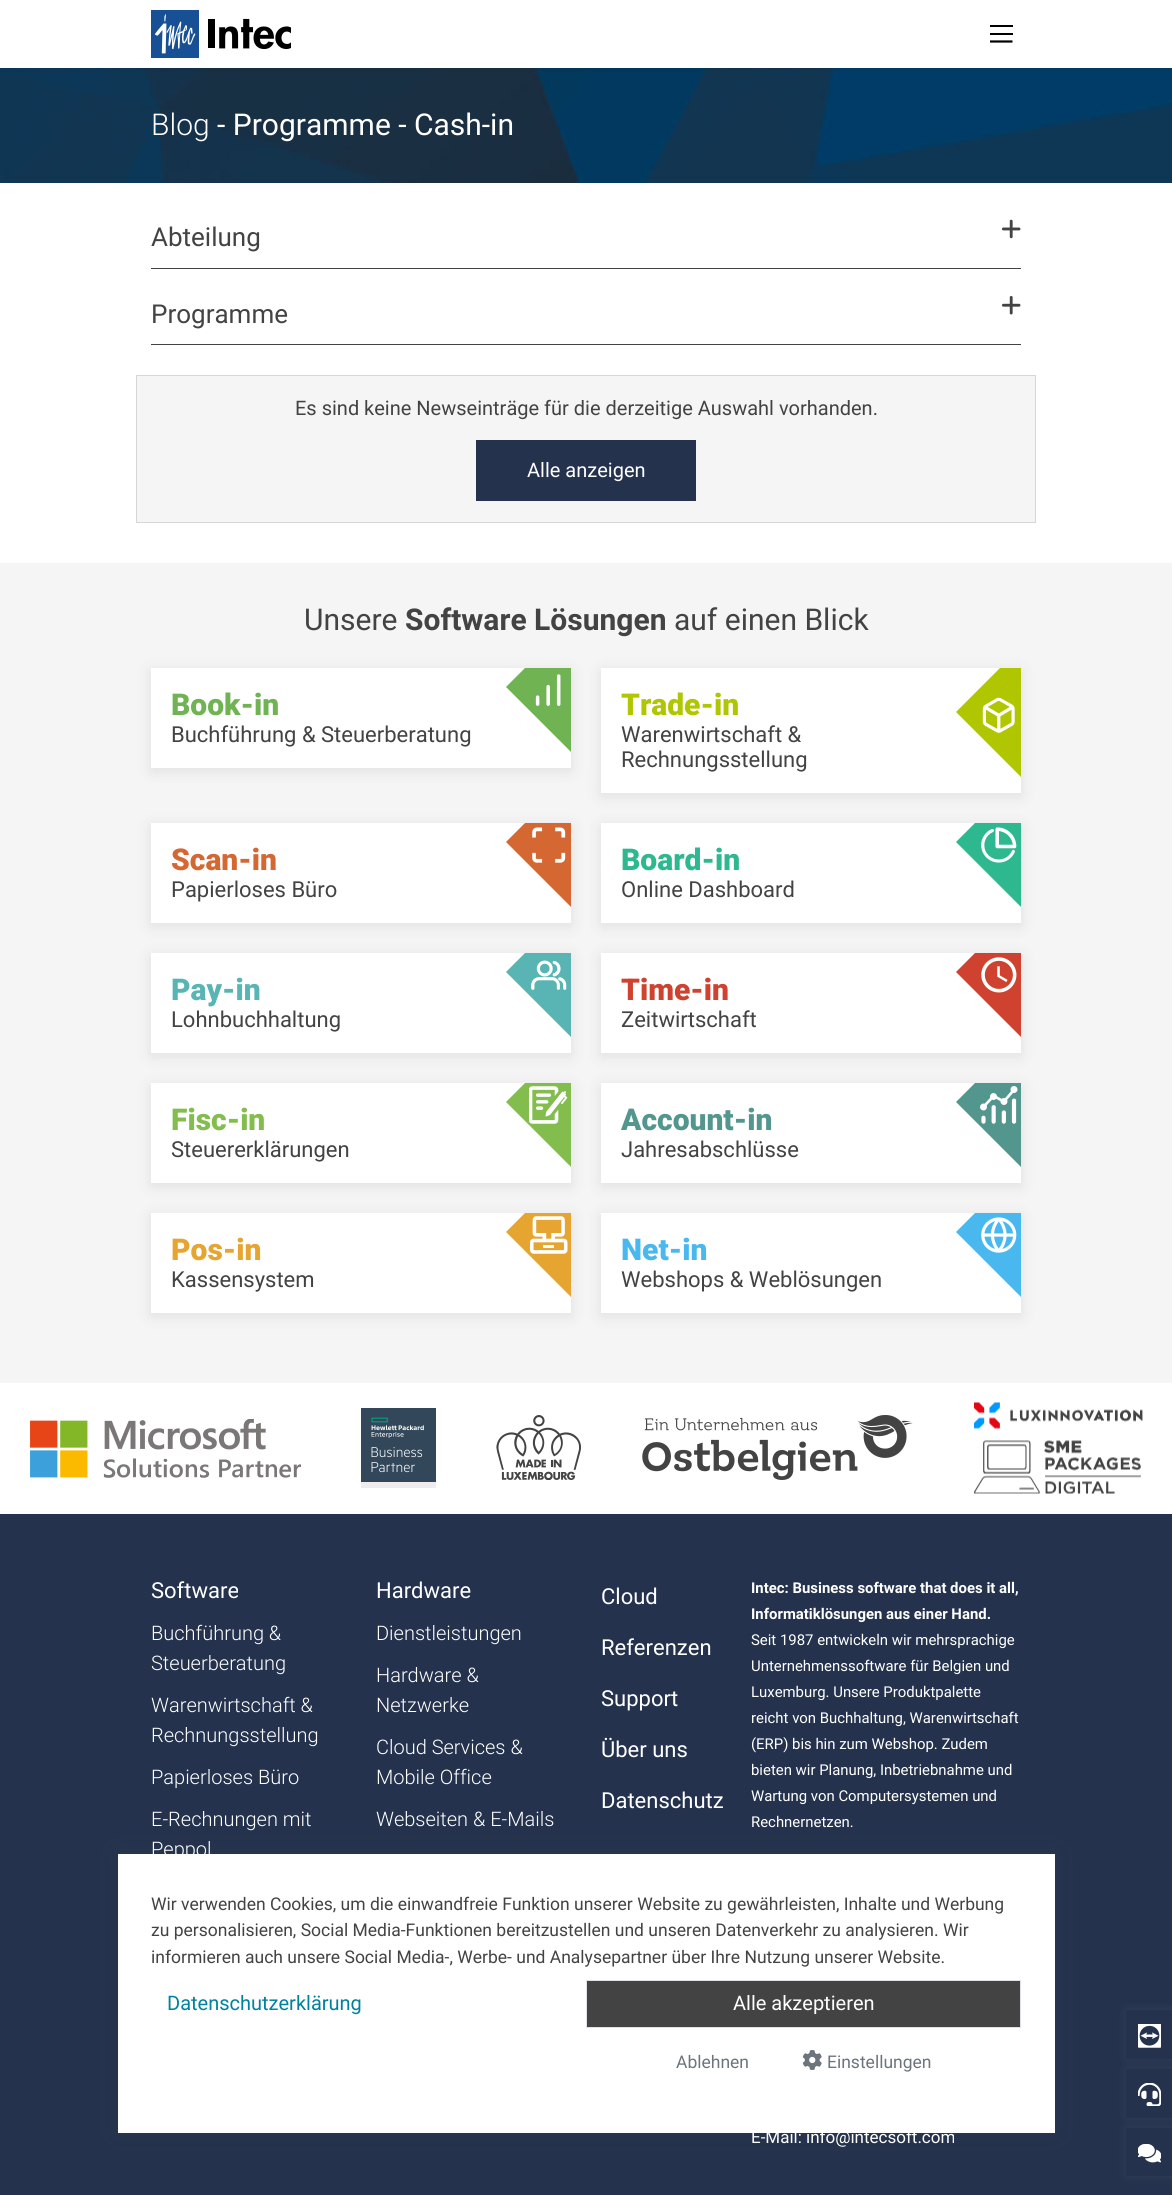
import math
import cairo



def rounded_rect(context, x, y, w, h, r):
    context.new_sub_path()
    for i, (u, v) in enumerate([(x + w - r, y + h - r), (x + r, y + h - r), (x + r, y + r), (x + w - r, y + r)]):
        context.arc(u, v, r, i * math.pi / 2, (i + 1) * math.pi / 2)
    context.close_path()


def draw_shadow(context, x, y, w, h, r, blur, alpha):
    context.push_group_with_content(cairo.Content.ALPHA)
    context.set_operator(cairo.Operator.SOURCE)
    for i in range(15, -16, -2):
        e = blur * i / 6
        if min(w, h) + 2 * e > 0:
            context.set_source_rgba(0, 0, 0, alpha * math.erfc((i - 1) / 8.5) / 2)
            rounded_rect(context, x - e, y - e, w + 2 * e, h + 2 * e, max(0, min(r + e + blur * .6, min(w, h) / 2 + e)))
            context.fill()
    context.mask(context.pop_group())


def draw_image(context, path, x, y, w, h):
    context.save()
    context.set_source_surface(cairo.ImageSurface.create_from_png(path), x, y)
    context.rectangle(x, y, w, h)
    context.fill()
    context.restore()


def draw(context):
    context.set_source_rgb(1, 1, 1)
    context.paint()
    draw_image(context, "images/2.png", 0, 68, 1172, 115)
    context.set_source_rgb(0, 0, 0)
    draw_shadow(context, 0, 3, 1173, 67, 0, 2.5, 0.07)
    context.set_source_rgb(1, 1, 1)
    context.rectangle(0, 0, 1172, 68)
    context.fill()
    draw_image(context, "images/1.png", 151, 10, 140, 48)
    context.set_source_rgb(0, 0, 0)
    context.rectangle(990, 25, 23, 2)
    context.fill()
    context.rectangle(990, 33, 23, 2)
    context.fill()
    context.new_path()
    context.move_to(990, 41.5)
    context.line_to(1012.5, 41.5)
    context.set_line_width(2.2)
    context.stroke()
    context.set_source_rgb(67 / 255, 67 / 255, 68 / 255)
    context.rectangle(151, 268, 870, 1)
    context.fill()
    draw_image(context, "images/3.png", 1002, 219, 19, 20)
    context.rectangle(151, 344, 870, 1)
    context.fill()
    draw_image(context, "images/4.png", 1002, 296, 19, 19)
    context.set_source_rgb(245 / 255, 245 / 255, 245 / 255)
    context.rectangle(136.5, 375.5, 899, 147)
    context.fill_preserve()
    context.set_source_rgb(214 / 255, 214 / 255, 214 / 255)
    context.set_line_width(1)
    context.stroke()
    context.set_source_rgb(36 / 255, 50 / 255, 77 / 255)
    context.rectangle(476, 440, 220, 61)
    context.fill()
    context.set_source_rgb(245 / 255, 245 / 255, 245 / 255)
    context.rectangle(0, 563, 1172, 820)
    context.fill()
    context.set_source_rgb(0, 0, 0)
    draw_shadow(context, 151, 671, 420, 100, 0, 7.5, 0.09)
    context.set_source_rgb(1, 1, 1)
    context.rectangle(151, 668, 420, 100)
    context.fill()
    context.save()
    context.rectangle(151, 668, 420, 100)
    context.clip()
    context.set_source_rgb(111 / 255, 179 / 255, 83 / 255)
    context.new_path()
    context.move_to(591, 602)
    context.line_to(676, 687)
    context.line_to(591, 772)
    context.line_to(506, 687)
    context.close_path()
    context.fill()
    context.restore()
    draw_image(context, "images/5.png", 535, 674, 26, 32)
    context.set_source_rgb(0, 0, 0)
    draw_shadow(context, 601, 671, 420, 125, 0, 7.5, 0.09)
    context.set_source_rgb(1, 1, 1)
    context.rectangle(601, 668, 420, 125)
    context.fill()
    context.save()
    context.rectangle(601, 668, 420, 125)
    context.clip()
    context.set_source_rgb(175 / 255, 198 / 255, 0)
    context.new_path()
    context.move_to(1041, 627)
    context.line_to(1126, 712)
    context.line_to(1041, 797)
    context.line_to(956, 712)
    context.close_path()
    context.fill()
    context.restore()
    draw_image(context, "images/6.png", 982, 697, 33, 36)
    context.set_source_rgb(0, 0, 0)
    draw_shadow(context, 151, 826, 420, 100, 0, 7.5, 0.09)
    context.set_source_rgb(1, 1, 1)
    context.rectangle(151, 823, 420, 100)
    context.fill()
    context.save()
    context.rectangle(151, 823, 420, 100)
    context.clip()
    context.set_source_rgb(213 / 255, 103 / 255, 51 / 255)
    context.new_path()
    context.move_to(591, 757)
    context.line_to(676, 842)
    context.line_to(591, 927)
    context.line_to(506, 842)
    context.close_path()
    context.fill()
    context.restore()
    draw_image(context, "images/7.png", 532, 827, 34, 36)
    context.set_source_rgb(0, 0, 0)
    draw_shadow(context, 601, 826, 420, 100, 0, 7.5, 0.09)
    context.set_source_rgb(1, 1, 1)
    context.rectangle(601, 823, 420, 100)
    context.fill()
    context.save()
    context.rectangle(601, 823, 420, 100)
    context.clip()
    context.set_source_rgb(45 / 255, 184 / 255, 144 / 255)
    context.new_path()
    context.move_to(1041, 757)
    context.line_to(1126, 842)
    context.line_to(1041, 927)
    context.line_to(956, 842)
    context.close_path()
    context.fill()
    context.restore()
    draw_image(context, "images/8.png", 981, 827, 36, 36)
    context.set_source_rgb(0, 0, 0)
    draw_shadow(context, 151, 956, 420, 100, 0, 7.5, 0.09)
    context.set_source_rgb(1, 1, 1)
    context.rectangle(151, 953, 420, 100)
    context.fill()
    context.save()
    context.rectangle(151, 953, 420, 100)
    context.clip()
    context.set_source_rgb(89 / 255, 181 / 255, 180 / 255)
    context.new_path()
    context.move_to(591, 887)
    context.line_to(676, 972)
    context.line_to(591, 1057)
    context.line_to(506, 972)
    context.close_path()
    context.fill()
    context.restore()
    draw_image(context, "images/9.png", 531, 960, 36, 30)
    context.set_source_rgb(0, 0, 0)
    draw_shadow(context, 601, 956, 420, 100, 0, 7.5, 0.09)
    context.set_source_rgb(1, 1, 1)
    context.rectangle(601, 953, 420, 100)
    context.fill()
    context.save()
    context.rectangle(601, 953, 420, 100)
    context.clip()
    context.set_source_rgb(207 / 255, 66 / 255, 47 / 255)
    context.new_path()
    context.move_to(1041, 887)
    context.line_to(1126, 972)
    context.line_to(1041, 1057)
    context.line_to(956, 972)
    context.close_path()
    context.fill()
    context.restore()
    draw_image(context, "images/10.png", 981, 957, 36, 36)
    context.set_source_rgb(0, 0, 0)
    draw_shadow(context, 151, 1086, 420, 100, 0, 7.5, 0.09)
    context.set_source_rgb(1, 1, 1)
    context.rectangle(151, 1083, 420, 100)
    context.fill()
    context.save()
    context.rectangle(151, 1083, 420, 100)
    context.clip()
    context.set_source_rgb(130 / 255, 189 / 255, 78 / 255)
    context.new_path()
    context.move_to(591, 1017)
    context.line_to(676, 1102)
    context.line_to(591, 1187)
    context.line_to(506, 1102)
    context.close_path()
    context.fill()
    context.restore()
    draw_image(context, "images/11.png", 529, 1086, 39, 38)
    context.set_source_rgb(0, 0, 0)
    draw_shadow(context, 601, 1086, 420, 100, 0, 7.5, 0.09)
    context.set_source_rgb(1, 1, 1)
    context.rectangle(601, 1083, 420, 100)
    context.fill()
    context.save()
    context.rectangle(601, 1083, 420, 100)
    context.clip()
    context.set_source_rgb(83 / 255, 150 / 255, 142 / 255)
    context.new_path()
    context.move_to(1041, 1017)
    context.line_to(1126, 1102)
    context.line_to(1041, 1187)
    context.line_to(956, 1102)
    context.close_path()
    context.fill()
    context.restore()
    draw_image(context, "images/12.png", 980, 1086, 38, 38)
    context.set_source_rgb(0, 0, 0)
    draw_shadow(context, 151, 1216, 420, 100, 0, 7.5, 0.09)
    context.set_source_rgb(1, 1, 1)
    context.rectangle(151, 1213, 420, 100)
    context.fill()
    context.save()
    context.rectangle(151, 1213, 420, 100)
    context.clip()
    context.set_source_rgb(230 / 255, 164 / 255, 48 / 255)
    context.new_path()
    context.move_to(591, 1147)
    context.line_to(676, 1232)
    context.line_to(591, 1317)
    context.line_to(506, 1232)
    context.close_path()
    context.fill()
    context.restore()
    draw_image(context, "images/13.png", 530, 1216, 38, 38)
    context.set_source_rgb(0, 0, 0)
    draw_shadow(context, 601, 1216, 420, 100, 0, 7.5, 0.09)
    context.set_source_rgb(1, 1, 1)
    context.rectangle(601, 1213, 420, 100)
    context.fill()
    context.save()
    context.rectangle(601, 1213, 420, 100)
    context.clip()
    context.set_source_rgb(73 / 255, 184 / 255, 239 / 255)
    context.new_path()
    context.move_to(1041, 1147)
    context.line_to(1126, 1232)
    context.line_to(1041, 1317)
    context.line_to(956, 1232)
    context.close_path()
    context.fill()
    context.restore()
    draw_image(context, "images/14.png", 981, 1217, 36, 36)
    draw_image(context, "images/15.png", 30, 1419, 271, 59)
    draw_image(context, "images/16.png", 361, 1408, 75, 80)
    draw_image(context, "images/17.png", 496, 1415, 85, 65)
    draw_image(context, "images/18.png", 642, 1415, 271, 65)
    draw_image(context, "images/19.png", 974, 1402, 169, 92)
    context.set_source_rgb(36 / 255, 50 / 255, 77 / 255)
    context.rectangle(0, 1514, 1172, 681)
    context.fill()
    context.set_source_rgb(67 / 255, 67 / 255, 68 / 255)
    draw_shadow(context, 118, 1854, 937, 279, 0, 9.5, 0.2)
    context.set_source_rgb(1, 1, 1)
    context.rectangle(118, 1854, 937, 279)
    context.fill()
    context.set_source_rgb(67 / 255, 67 / 255, 68 / 255)
    context.rectangle(586.5, 1980.5, 434, 47)
    context.fill_preserve()
    context.set_source_rgb(222 / 255, 226 / 255, 230 / 255)
    context.stroke()
    draw_image(context, "images/20.png", 802, 2050, 20, 20)
    context.set_source_rgb(1, 1, 1)
    draw_shadow(context, 1126, 2010, 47, 49, 0, 5, 0.07)
    context.set_source_rgb(36 / 255, 50 / 255, 77 / 255)
    context.rectangle(1126, 2010, 46, 49)
    context.fill()
    draw_image(context, "images/21.png", 1138, 2024, 23, 24)
    context.set_source_rgb(1, 1, 1)
    draw_shadow(context, 1126, 2069, 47, 49, 0, 5, 0.07)
    context.set_source_rgb(36 / 255, 50 / 255, 77 / 255)
    context.rectangle(1126, 2069, 46, 49)
    context.fill()
    draw_image(context, "images/22.png", 1138, 2083, 23, 23)
    context.set_source_rgb(1, 1, 1)
    draw_shadow(context, 1126, 2128, 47, 48, 0, 5, 0.07)
    context.set_source_rgb(36 / 255, 50 / 255, 77 / 255)
    context.rectangle(1126, 2128, 46, 48)
    context.fill()
    draw_image(context, "images/23.png", 1138, 2144, 23, 19)
    context.select_font_face("Roboto Light")
    context.set_font_size(30)
    context.set_source_rgb(1, 1, 1)
    context.move_to(151, 135)
    context.show_text("Blog")
    context.select_font_face("Roboto")
    context.move_to(217, 135)
    context.show_text("- Programme - Cash-in")
    context.set_font_size(26)
    context.set_source_rgb(67 / 255, 67 / 255, 68 / 255)
    context.move_to(151, 246)
    context.show_text("Abteilung")
    context.move_to(151, 323)
    context.show_text("Programme")
    context.set_font_size(20)
    context.move_to(295, 415)
    context.show_text("Es sind keine Newseinträge für die derzeitige Auswahl vorhanden.")
    context.set_source_rgb(1, 1, 1)
    context.move_to(527, 477)
    context.show_text("Alle anzeigen")
    context.set_font_size(30)
    context.set_source_rgb(67 / 255, 67 / 255, 68 / 255)
    context.move_to(304, 630)
    context.show_text("Unsere")
    context.select_font_face("Roboto", cairo.FontSlant.NORMAL, cairo.FontWeight.BOLD)
    context.move_to(405, 630)
    context.show_text("Software Lösungen")
    context.select_font_face("Roboto")
    context.move_to(674, 630)
    context.show_text("auf einen Blick")
    context.select_font_face("Roboto Black")
    context.set_source_rgb(111 / 255, 179 / 255, 83 / 255)
    context.move_to(171, 715)
    context.show_text("Book-in")
    context.select_font_face("Roboto")
    context.set_font_size(22)
    context.set_source_rgb(67 / 255, 67 / 255, 68 / 255)
    context.move_to(171, 742)
    context.show_text("Buchführung & Steuerberatung")
    context.select_font_face("Roboto Black")
    context.set_font_size(30)
    context.set_source_rgb(175 / 255, 198 / 255, 0)
    context.move_to(621, 715)
    context.show_text("Trade-in")
    context.select_font_face("Roboto")
    context.set_font_size(22)
    context.set_source_rgb(67 / 255, 67 / 255, 68 / 255)
    context.move_to(621, 742)
    context.show_text("Warenwirtschaft &")
    context.move_to(621, 767)
    context.show_text("Rechnungsstellung")
    context.select_font_face("Roboto Black")
    context.set_font_size(30)
    context.set_source_rgb(213 / 255, 103 / 255, 51 / 255)
    context.move_to(171, 870)
    context.show_text("Scan-in")
    context.select_font_face("Roboto")
    context.set_font_size(22)
    context.set_source_rgb(67 / 255, 67 / 255, 68 / 255)
    context.move_to(171, 897)
    context.show_text("Papierloses Büro")
    context.select_font_face("Roboto Black")
    context.set_font_size(30)
    context.set_source_rgb(45 / 255, 184 / 255, 144 / 255)
    context.move_to(621, 870)
    context.show_text("Board-in")
    context.select_font_face("Roboto")
    context.set_font_size(22)
    context.set_source_rgb(67 / 255, 67 / 255, 68 / 255)
    context.move_to(621, 897)
    context.show_text("Online Dashboard")
    context.select_font_face("Roboto Black")
    context.set_font_size(30)
    context.set_source_rgb(89 / 255, 181 / 255, 180 / 255)
    context.move_to(171, 1000)
    context.show_text("Pay-in")
    context.select_font_face("Roboto")
    context.set_font_size(22)
    context.set_source_rgb(67 / 255, 67 / 255, 68 / 255)
    context.move_to(171, 1027)
    context.show_text("Lohnbuchhaltung")
    context.select_font_face("Roboto Black")
    context.set_font_size(30)
    context.set_source_rgb(207 / 255, 66 / 255, 47 / 255)
    context.move_to(621, 1000)
    context.show_text("Time-in")
    context.select_font_face("Roboto")
    context.set_font_size(22)
    context.set_source_rgb(67 / 255, 67 / 255, 68 / 255)
    context.move_to(621, 1027)
    context.show_text("Zeitwirtschaft")
    context.select_font_face("Roboto Black")
    context.set_font_size(30)
    context.set_source_rgb(130 / 255, 189 / 255, 78 / 255)
    context.move_to(171, 1130)
    context.show_text("Fisc-in")
    context.select_font_face("Roboto")
    context.set_font_size(22)
    context.set_source_rgb(67 / 255, 67 / 255, 68 / 255)
    context.move_to(171, 1157)
    context.show_text("Steuererklärungen")
    context.select_font_face("Roboto Black")
    context.set_font_size(30)
    context.set_source_rgb(83 / 255, 150 / 255, 142 / 255)
    context.move_to(621, 1130)
    context.show_text("Account-in")
    context.select_font_face("Roboto")
    context.set_font_size(22)
    context.set_source_rgb(67 / 255, 67 / 255, 68 / 255)
    context.move_to(621, 1157)
    context.show_text("Jahresabschlüsse")
    context.select_font_face("Roboto Black")
    context.set_font_size(30)
    context.set_source_rgb(230 / 255, 164 / 255, 48 / 255)
    context.move_to(171, 1260)
    context.show_text("Pos-in")
    context.select_font_face("Roboto")
    context.set_font_size(22)
    context.set_source_rgb(67 / 255, 67 / 255, 68 / 255)
    context.move_to(171, 1287)
    context.show_text("Kassensystem")
    context.select_font_face("Roboto Black")
    context.set_font_size(30)
    context.set_source_rgb(73 / 255, 184 / 255, 239 / 255)
    context.move_to(621, 1260)
    context.show_text("Net-in")
    context.select_font_face("Roboto")
    context.set_font_size(22)
    context.set_source_rgb(67 / 255, 67 / 255, 68 / 255)
    context.move_to(621, 1287)
    context.show_text("Webshops & Weblösungen")
    context.set_source_rgb(1, 1, 1)
    context.move_to(151, 1598)
    context.show_text("Software")
    context.select_font_face("Roboto Light")
    context.set_font_size(20)
    context.move_to(151, 1640)
    context.show_text("Buchführung &")
    context.move_to(151, 1670)
    context.show_text("Steuerberatung")
    context.move_to(151, 1712)
    context.show_text("Warenwirtschaft &")
    context.move_to(151, 1742)
    context.show_text("Rechnungsstellung")
    context.move_to(151, 1784)
    context.show_text("Papierloses Büro")
    context.move_to(151, 1826)
    context.show_text("E-Rechnungen mit")
    context.move_to(151, 1856)
    context.show_text("Peppol")
    context.select_font_face("Roboto")
    context.set_font_size(22)
    context.move_to(376, 1598)
    context.show_text("Hardware")
    context.select_font_face("Roboto Light")
    context.set_font_size(20)
    context.move_to(376, 1640)
    context.show_text("Dienstleistungen")
    context.move_to(376, 1682)
    context.show_text("Hardware &")
    context.move_to(376, 1712)
    context.show_text("Netzwerke")
    context.move_to(376, 1754)
    context.show_text("Cloud Services &")
    context.move_to(376, 1784)
    context.show_text("Mobile Office")
    context.move_to(376, 1826)
    context.show_text("Webseiten & E-Mails")
    context.select_font_face("Roboto")
    context.set_font_size(22)
    context.move_to(601, 1604)
    context.show_text("Cloud")
    context.move_to(601, 1655)
    context.show_text("Referenzen")
    context.move_to(601, 1706)
    context.show_text("Support")
    context.move_to(601, 1757)
    context.show_text("Über uns")
    context.move_to(601, 1808)
    context.show_text("Datenschutz")
    context.select_font_face("Roboto", cairo.FontSlant.NORMAL, cairo.FontWeight.BOLD)
    context.set_font_size(14.9)
    context.move_to(751, 1593)
    context.show_text("Intec: Business software that does it all,")
    context.move_to(751, 1619)
    context.show_text("Informatiklösungen aus einer Hand.")
    context.select_font_face("Roboto")
    context.move_to(751, 1645)
    context.show_text("Seit 1987 entwickeln wir mehrsprachige")
    context.move_to(751, 1671)
    context.show_text("Unternehmenssoftware für Belgien und")
    context.move_to(751, 1697)
    context.show_text("Luxemburg. Unsere Produktpalette")
    context.move_to(751, 1723)
    context.show_text("reicht von Buchhaltung, Warenwirtschaft")
    context.move_to(751, 1749)
    context.show_text("(ERP) bis hin zum Webshop. Zudem")
    context.move_to(751, 1775)
    context.show_text("bieten wir Planung, Inbetriebnahme und")
    context.move_to(751, 1801)
    context.show_text("Wartung von Computersystemen und")
    context.move_to(751, 1827)
    context.show_text("Rechnernetzen.")
    context.set_font_size(17)
    context.move_to(751, 2143)
    context.show_text("E-Mail: info@intecsoft.com")
    context.set_font_size(17.5)
    context.set_source_rgb(67 / 255, 67 / 255, 68 / 255)
    context.move_to(151, 1910)
    context.show_text("Wir verwenden Cookies, um die einwandfreie Funktion unserer Website zu gewährleisten, Inhalte und Werbung")
    context.move_to(151, 1936)
    context.show_text("zu personalisieren, Social Media-Funktionen bereitzustellen und unseren Datenverkehr zu analysieren. Wir")
    context.move_to(151, 1963)
    context.show_text("informieren auch unsere Social Media-, Werbe- und Analysepartner über Ihre Nutzung unserer Website.")
    context.set_font_size(20)
    context.set_source_rgb(0, 129 / 255, 158 / 255)
    context.move_to(167, 2010)
    context.show_text("Datenschutzerklärung")
    context.set_source_rgb(1, 1, 1)
    context.move_to(733, 2010)
    context.show_text("Alle akzeptieren")
    context.set_font_size(17.5)
    context.set_source_rgb(108 / 255, 117 / 255, 125 / 255)
    context.move_to(676, 2068)
    context.show_text("Ablehnen")
    context.move_to(827, 2068)
    context.show_text("Einstellungen")


surface = cairo.ImageSurface(cairo.Format.RGB24, 1172, 2195)
context = cairo.Context(surface)
options = cairo.FontOptions()
options.set_hint_metrics(cairo.HintMetrics.OFF)
options.set_hint_style(cairo.HintStyle.NONE)
context.set_font_options(options)
context.set_miter_limit(4)
draw(context)
surface.write_to_png("out.png")
